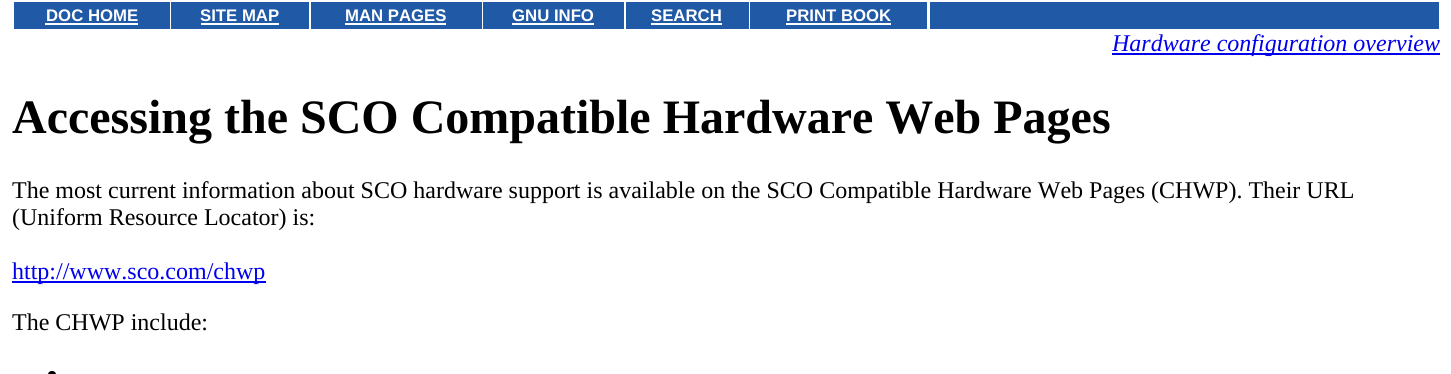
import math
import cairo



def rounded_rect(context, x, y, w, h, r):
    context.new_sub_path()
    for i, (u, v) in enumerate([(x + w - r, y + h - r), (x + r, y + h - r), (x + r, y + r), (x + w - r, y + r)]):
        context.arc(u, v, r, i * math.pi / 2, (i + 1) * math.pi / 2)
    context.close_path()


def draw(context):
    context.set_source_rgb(1, 1, 1)
    context.paint()
    context.set_source_rgb(32 / 255, 89 / 255, 166 / 255)
    context.rectangle(14, 2, 156, 27)
    context.fill()
    context.set_source_rgb(1, 1, 1)
    context.rectangle(45, 23, 93, 2)
    context.fill()
    context.set_source_rgb(32 / 255, 89 / 255, 166 / 255)
    context.rectangle(171, 2, 138, 27)
    context.fill()
    context.set_source_rgb(1, 1, 1)
    context.rectangle(201, 23, 78, 2)
    context.fill()
    context.set_source_rgb(32 / 255, 89 / 255, 166 / 255)
    context.rectangle(311, 2, 171, 27)
    context.fill()
    context.set_source_rgb(1, 1, 1)
    context.rectangle(345, 23, 101, 2)
    context.fill()
    context.set_source_rgb(32 / 255, 89 / 255, 166 / 255)
    context.rectangle(483, 2, 141, 27)
    context.fill()
    context.set_source_rgb(1, 1, 1)
    context.rectangle(512, 23, 82, 2)
    context.fill()
    context.set_source_rgb(32 / 255, 89 / 255, 166 / 255)
    context.rectangle(626, 2, 123, 27)
    context.fill()
    context.set_source_rgb(1, 1, 1)
    context.rectangle(651, 23, 71, 2)
    context.fill()
    context.set_source_rgb(32 / 255, 89 / 255, 166 / 255)
    context.rectangle(750, 2, 177, 27)
    context.fill()
    context.set_source_rgb(1, 1, 1)
    context.rectangle(786, 23, 105, 2)
    context.fill()
    context.set_source_rgb(32 / 255, 89 / 255, 166 / 255)
    context.rectangle(930, 2, 509, 27)
    context.fill()
    context.set_source_rgb(0, 0, 238 / 255)
    context.rectangle(1112, 53, 328, 2)
    context.fill()
    context.rectangle(12, 281, 254, 2)
    context.fill()
    context.set_source_rgb(0, 0, 0)
    rounded_rect(context, 48, 371, 8, 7, 3.5)
    context.fill()
    context.select_font_face("Liberation Sans", cairo.FontSlant.NORMAL, cairo.FontWeight.BOLD)
    context.set_font_size(16.75)
    context.set_source_rgb(1, 1, 1)
    context.move_to(46, 21)
    context.show_text("DOC HOME")
    context.move_to(200, 21)
    context.show_text("SITE MAP")
    context.move_to(345, 21)
    context.show_text("MAN PAGES")
    context.move_to(512, 21)
    context.show_text("GNU INFO")
    context.move_to(651, 21)
    context.show_text("SEARCH")
    context.move_to(786, 21)
    context.show_text("PRINT BOOK")
    context.select_font_face("Liberation Serif", cairo.FontSlant.ITALIC)
    context.set_font_size(24)
    context.set_source_rgb(0, 0, 238 / 255)
    context.move_to(1112, 51)
    context.show_text("Hardware configuration overview")
    context.select_font_face("Liberation Serif", cairo.FontSlant.NORMAL, cairo.FontWeight.BOLD)
    context.set_font_size(48)
    context.set_source_rgb(0, 0, 0)
    context.move_to(12, 133)
    context.show_text("Accessing the SCO Compatible Hardware Web Pages")
    context.select_font_face("Liberation Serif")
    context.set_font_size(24)
    context.move_to(12, 198)
    context.show_text("The most current information about SCO hardware support is available on the SCO Compatible Hardware Web Pages (CHWP). Their URL")
    context.move_to(12, 225)
    context.show_text("(Uniform Resource Locator) is:")
    context.set_source_rgb(0, 0, 238 / 255)
    context.move_to(12, 279)
    context.show_text("http://www.sco.com/chwp")
    context.set_source_rgb(0, 0, 0)
    context.move_to(12, 330)
    context.show_text("The CHWP include:")


surface = cairo.ImageSurface(cairo.Format.RGB24, 1451, 374)
context = cairo.Context(surface)
options = cairo.FontOptions()
options.set_hint_metrics(cairo.HintMetrics.OFF)
options.set_hint_style(cairo.HintStyle.NONE)
context.set_font_options(options)
context.set_miter_limit(4)
draw(context)
surface.write_to_png("out.png")
